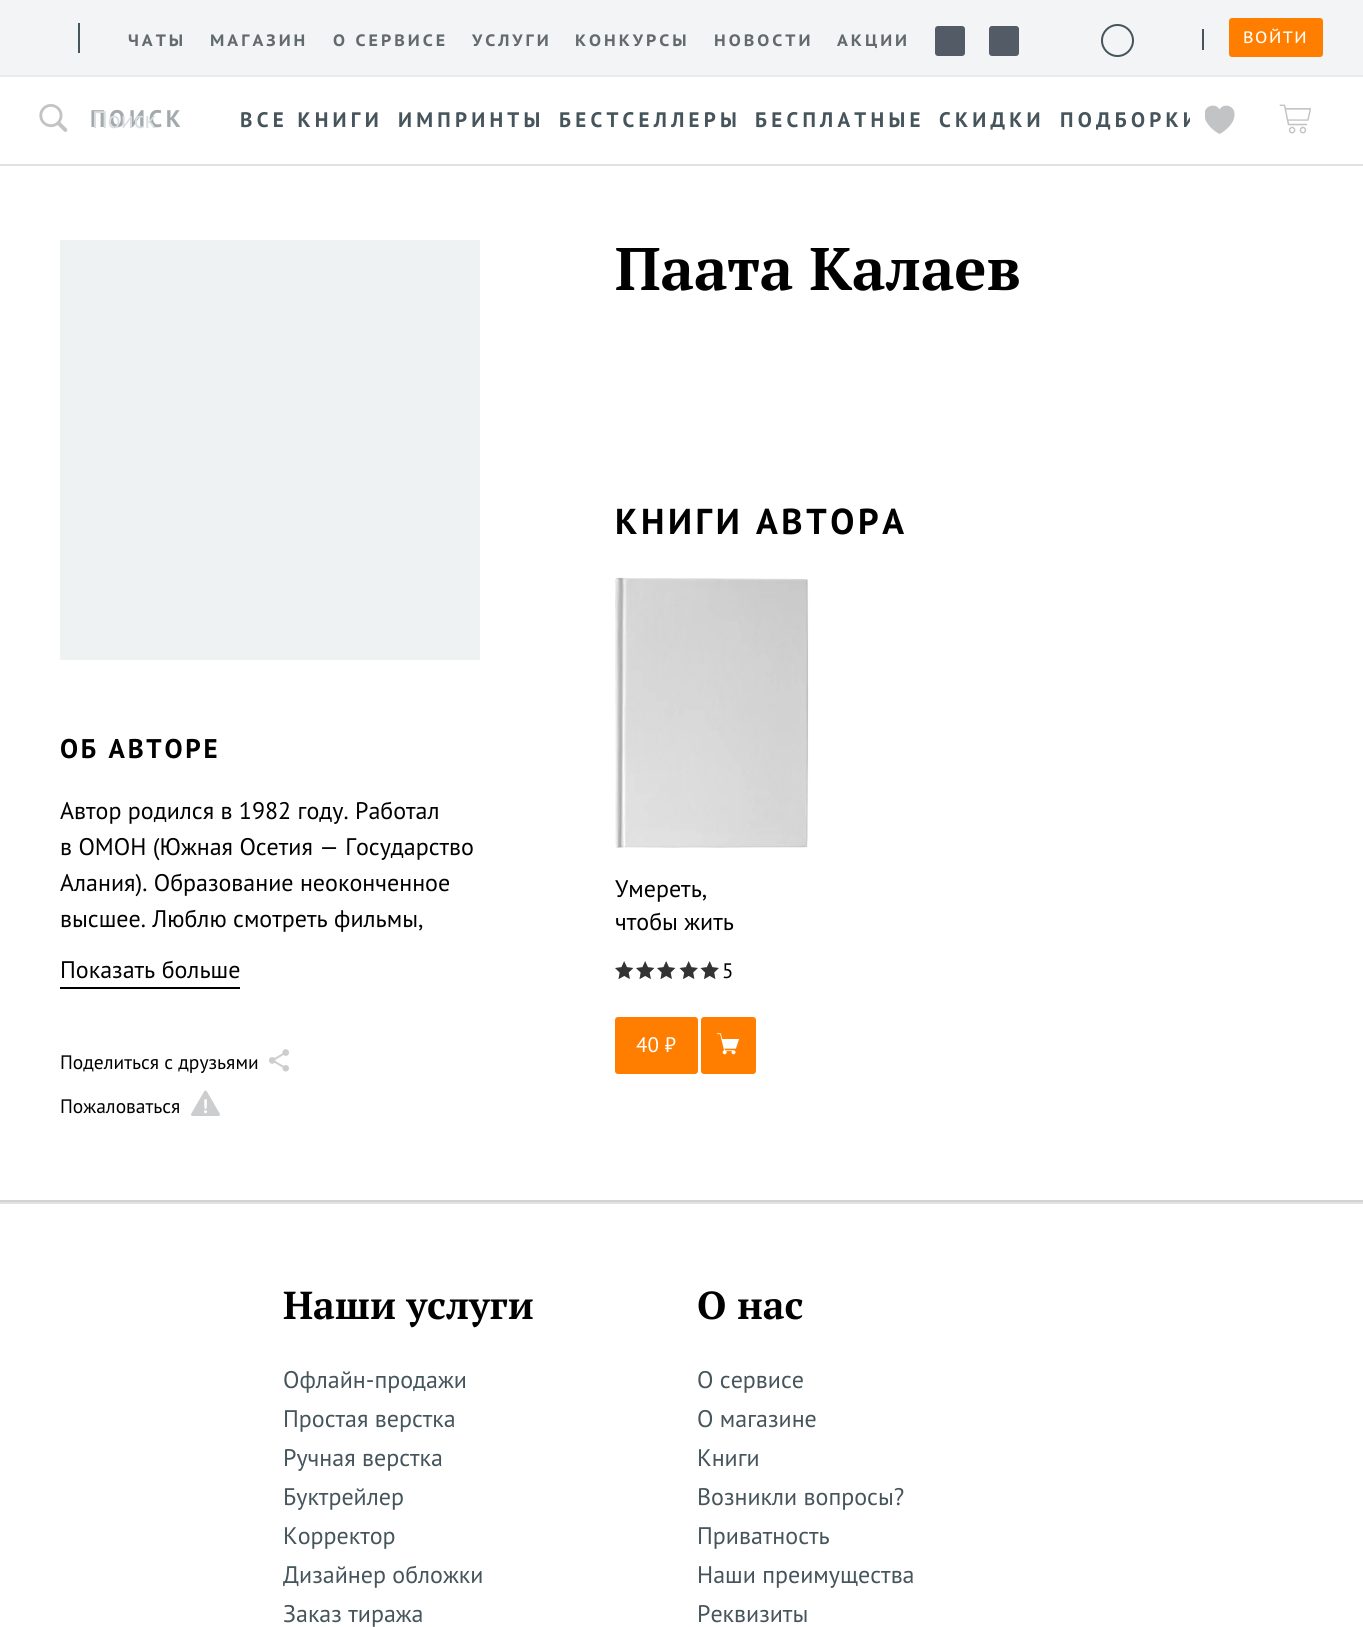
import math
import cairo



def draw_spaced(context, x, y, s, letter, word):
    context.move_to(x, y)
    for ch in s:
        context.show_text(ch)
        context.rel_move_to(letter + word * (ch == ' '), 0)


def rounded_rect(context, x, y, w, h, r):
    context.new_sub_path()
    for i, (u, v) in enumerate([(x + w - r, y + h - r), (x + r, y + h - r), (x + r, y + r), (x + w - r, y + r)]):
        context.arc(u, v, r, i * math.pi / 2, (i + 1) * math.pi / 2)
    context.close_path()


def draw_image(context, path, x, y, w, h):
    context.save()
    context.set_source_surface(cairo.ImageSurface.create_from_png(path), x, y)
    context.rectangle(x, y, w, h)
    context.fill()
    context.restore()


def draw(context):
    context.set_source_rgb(1, 1, 1)
    context.paint()
    context.set_source_rgb(233 / 255, 236 / 255, 237 / 255)
    context.new_path()
    context.move_to(0, 75)
    context.line_to(0, 77)
    context.line_to(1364, 77)
    context.line_to(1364, 2)
    context.line_to(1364, 75)
    context.close_path()
    context.fill()
    context.set_source_rgb(242 / 255, 244 / 255, 245 / 255)
    context.rectangle(0, 0, 1363, 75)
    context.fill()
    context.set_source_rgb(70 / 255, 84 / 255, 91 / 255)
    context.rectangle(78, 23, 2, 30)
    context.fill()
    context.set_source_rgb(83 / 255, 92 / 255, 102 / 255)
    rounded_rect(context, 935, 26, 30, 30, 3)
    context.fill()
    rounded_rect(context, 989, 26, 30, 30, 3)
    context.fill()
    context.arc(1117.5, 40.5, 15.5, 0, 2 * math.pi)
    context.set_source_rgb(70 / 255, 84 / 255, 91 / 255)
    context.stroke()
    context.rectangle(1202, 29, 2, 21)
    context.fill()
    context.set_source_rgb(1, 126 / 255, 0)
    rounded_rect(context, 1229, 18, 94, 39, 3)
    context.fill()
    context.set_source_rgb(223 / 255, 227 / 255, 229 / 255)
    context.rectangle(0, 164, 1363, 2)
    context.fill()
    draw_image(context, "images/1.png", 39, 104, 29, 28)
    draw_image(context, "images/2.png", 1205, 105, 30, 29)
    draw_image(context, "images/3.png", 1279, 104, 32, 30)
    context.set_source_rgb(211 / 255, 211 / 255, 211 / 255)
    context.rectangle(0, 1200, 1363, 2)
    context.fill()
    context.set_source_rgb(238 / 255, 242 / 255, 243 / 255)
    context.rectangle(60, 240, 420, 420)
    context.fill()
    context.set_source_rgb(0, 0, 0)
    context.rectangle(60, 987, 180, 2)
    context.fill()
    draw_image(context, "images/4.png", 269, 1049, 20, 23)
    draw_image(context, "images/5.png", 191, 1090, 29, 26)
    draw_image(context, "images/6.png", 615, 577, 194, 271)
    draw_image(context, "images/7.png", 615, 961, 18, 18)
    draw_image(context, "images/8.png", 615, 961, 19, 18)
    draw_image(context, "images/7.png", 636, 961, 18, 18)
    draw_image(context, "images/8.png", 636, 961, 19, 18)
    draw_image(context, "images/7.png", 657, 961, 18, 18)
    draw_image(context, "images/8.png", 657, 961, 19, 18)
    draw_image(context, "images/10.png", 679, 961, 19, 18)
    draw_image(context, "images/9.png", 679, 961, 19, 18)
    draw_image(context, "images/10.png", 700, 961, 19, 18)
    draw_image(context, "images/9.png", 700, 961, 19, 18)
    context.set_source_rgb(1, 126 / 255, 0)
    rounded_rect(context, 615, 1017, 83, 57, 3)
    context.fill()
    rounded_rect(context, 701, 1017, 55, 57, 3)
    context.fill()
    draw_image(context, "images/11.png", 717, 1033, 23, 22)
    context.set_source_rgb(223 / 255, 227 / 255, 229 / 255)
    context.rectangle(0, 1202, 1363, 2)
    context.fill()
    context.select_font_face("PT Sans Caption", cairo.FontSlant.NORMAL, cairo.FontWeight.BOLD)
    context.set_font_size(16.5)
    context.set_source_rgb(99 / 255, 106 / 255, 109 / 255)
    draw_spaced(context, 128, 46, "ЧАТЫ", 3, 0)
    draw_spaced(context, 210, 46, "МАГАЗИН", 3, 0)
    draw_spaced(context, 333, 46, "О СЕРВИСЕ", 3, 0)
    draw_spaced(context, 472, 46, "УСЛУГИ", 3, 0)
    draw_spaced(context, 575, 46, "КОНКУРСЫ", 3, 0)
    draw_spaced(context, 714, 46, "НОВОСТИ", 3, 0)
    draw_spaced(context, 837, 46, "АКЦИИ", 3, 0)
    context.select_font_face("PT Sans Caption")
    context.set_source_rgb(1, 1, 1)
    draw_spaced(context, 1243, 43, "ВОЙТИ", 1.5, 0)
    context.select_font_face("PT Sans", cairo.FontSlant.NORMAL, cairo.FontWeight.BOLD)
    context.set_font_size(24)
    context.set_source_rgb(163 / 255, 170 / 255, 173 / 255)
    draw_spaced(context, 90, 127, "ПОИСК", 3.75, 0)
    context.select_font_face("PT Sans")
    context.set_source_rgb(218 / 255, 221 / 255, 222 / 255)
    context.move_to(92, 128)
    context.show_text("Поиск")
    context.select_font_face("PT Sans", cairo.FontSlant.NORMAL, cairo.FontWeight.BOLD)
    context.set_font_size(21)
    context.set_source_rgb(70 / 255, 84 / 255, 91 / 255)
    draw_spaced(context, 240, 127, "ВСЕ КНИГИ", 4.25, 0)
    draw_spaced(context, 398, 127, "ИМПРИНТЫ", 4.25, 0)
    draw_spaced(context, 559, 127, "БЕСТСЕЛЛЕРЫ", 4.25, 0)
    draw_spaced(context, 755, 127, "БЕСПЛАТНЫЕ", 4.25, 0)
    draw_spaced(context, 939, 127, "СКИДКИ", 4.25, 0)
    context.save()
    context.rectangle(233, 107, 957, 27)
    context.clip()
    draw_spaced(context, 1060, 127, "ПОДБОРКИ", 4.25, 0)
    context.restore()
    context.set_font_size(27)
    context.set_source_rgb(0, 0, 0)
    draw_spaced(context, 60, 758, "ОБ АВТОРЕ", 2.75, 0)
    context.select_font_face("PT Sans")
    context.set_font_size(24)
    context.move_to(60, 819)
    context.show_text("Автор родился в 1982 году. Работал")
    context.move_to(60, 855)
    context.show_text("в ОМОН (Южная Осетия — Государство")
    context.move_to(60, 891)
    context.show_text("Алания). Образование неоконченное")
    context.move_to(60, 927)
    context.show_text("высшее. Люблю смотреть фильмы,")
    context.move_to(60, 978)
    context.show_text("Показать больше")
    context.set_font_size(19.5)
    context.move_to(60, 1069)
    context.show_text("Поделиться с друзьями")
    context.move_to(60, 1113)
    context.show_text("Пожаловаться")
    context.select_font_face("PT Serif", cairo.FontSlant.NORMAL, cairo.FontWeight.BOLD)
    context.set_font_size(60)
    context.move_to(615, 290)
    context.show_text("Паата Калаев")
    context.select_font_face("PT Sans", cairo.FontSlant.NORMAL, cairo.FontWeight.BOLD)
    context.set_font_size(36)
    draw_spaced(context, 615, 534, "КНИГИ АВТОРА", 3.6, 0)
    context.select_font_face("PT Sans")
    context.set_font_size(24)
    context.move_to(615, 897)
    context.show_text("Умереть,")
    context.move_to(615, 930)
    context.show_text("чтобы жить")
    context.set_font_size(21)
    context.move_to(722, 978)
    context.show_text("5")
    context.set_source_rgb(1, 1, 1)
    context.move_to(636, 1052)
    context.show_text("40 ₽")
    context.select_font_face("PT Serif", cairo.FontSlant.NORMAL, cairo.FontWeight.BOLD)
    context.set_font_size(39)
    context.set_source_rgb(0, 0, 0)
    context.move_to(283, 1319)
    context.show_text("Наши услуги")
    context.select_font_face("PT Sans")
    context.set_font_size(24)
    context.set_source_rgb(70 / 255, 84 / 255, 91 / 255)
    context.move_to(283, 1388)
    context.show_text("Офлайн-продажи")
    context.move_to(283, 1427)
    context.show_text("Простая верстка")
    context.move_to(283, 1466)
    context.show_text("Ручная верстка")
    context.move_to(283, 1505)
    context.show_text("Буктрейлер")
    context.move_to(283, 1544)
    context.show_text("Корректор")
    context.move_to(283, 1583)
    context.show_text("Дизайнер обложки")
    context.move_to(283, 1622)
    context.show_text("Заказ тиража")
    context.select_font_face("PT Serif", cairo.FontSlant.NORMAL, cairo.FontWeight.BOLD)
    context.set_font_size(39)
    context.set_source_rgb(0, 0, 0)
    context.move_to(697, 1319)
    context.show_text("О нас")
    context.select_font_face("PT Sans")
    context.set_font_size(24)
    context.set_source_rgb(70 / 255, 84 / 255, 91 / 255)
    context.move_to(697, 1388)
    context.show_text("О сервисе")
    context.move_to(697, 1427)
    context.show_text("О магазине")
    context.move_to(697, 1466)
    context.show_text("Книги")
    context.move_to(697, 1505)
    context.show_text("Возникли вопросы?")
    context.move_to(697, 1544)
    context.show_text("Приватность")
    context.move_to(697, 1583)
    context.show_text("Наши преимущества")
    context.move_to(697, 1622)
    context.show_text("Реквизиты")


surface = cairo.ImageSurface(cairo.Format.RGB24, 1363, 1627)
context = cairo.Context(surface)
options = cairo.FontOptions()
options.set_hint_metrics(cairo.HintMetrics.OFF)
options.set_hint_style(cairo.HintStyle.NONE)
context.set_font_options(options)
context.set_miter_limit(4)
draw(context)
surface.write_to_png("out.png")
